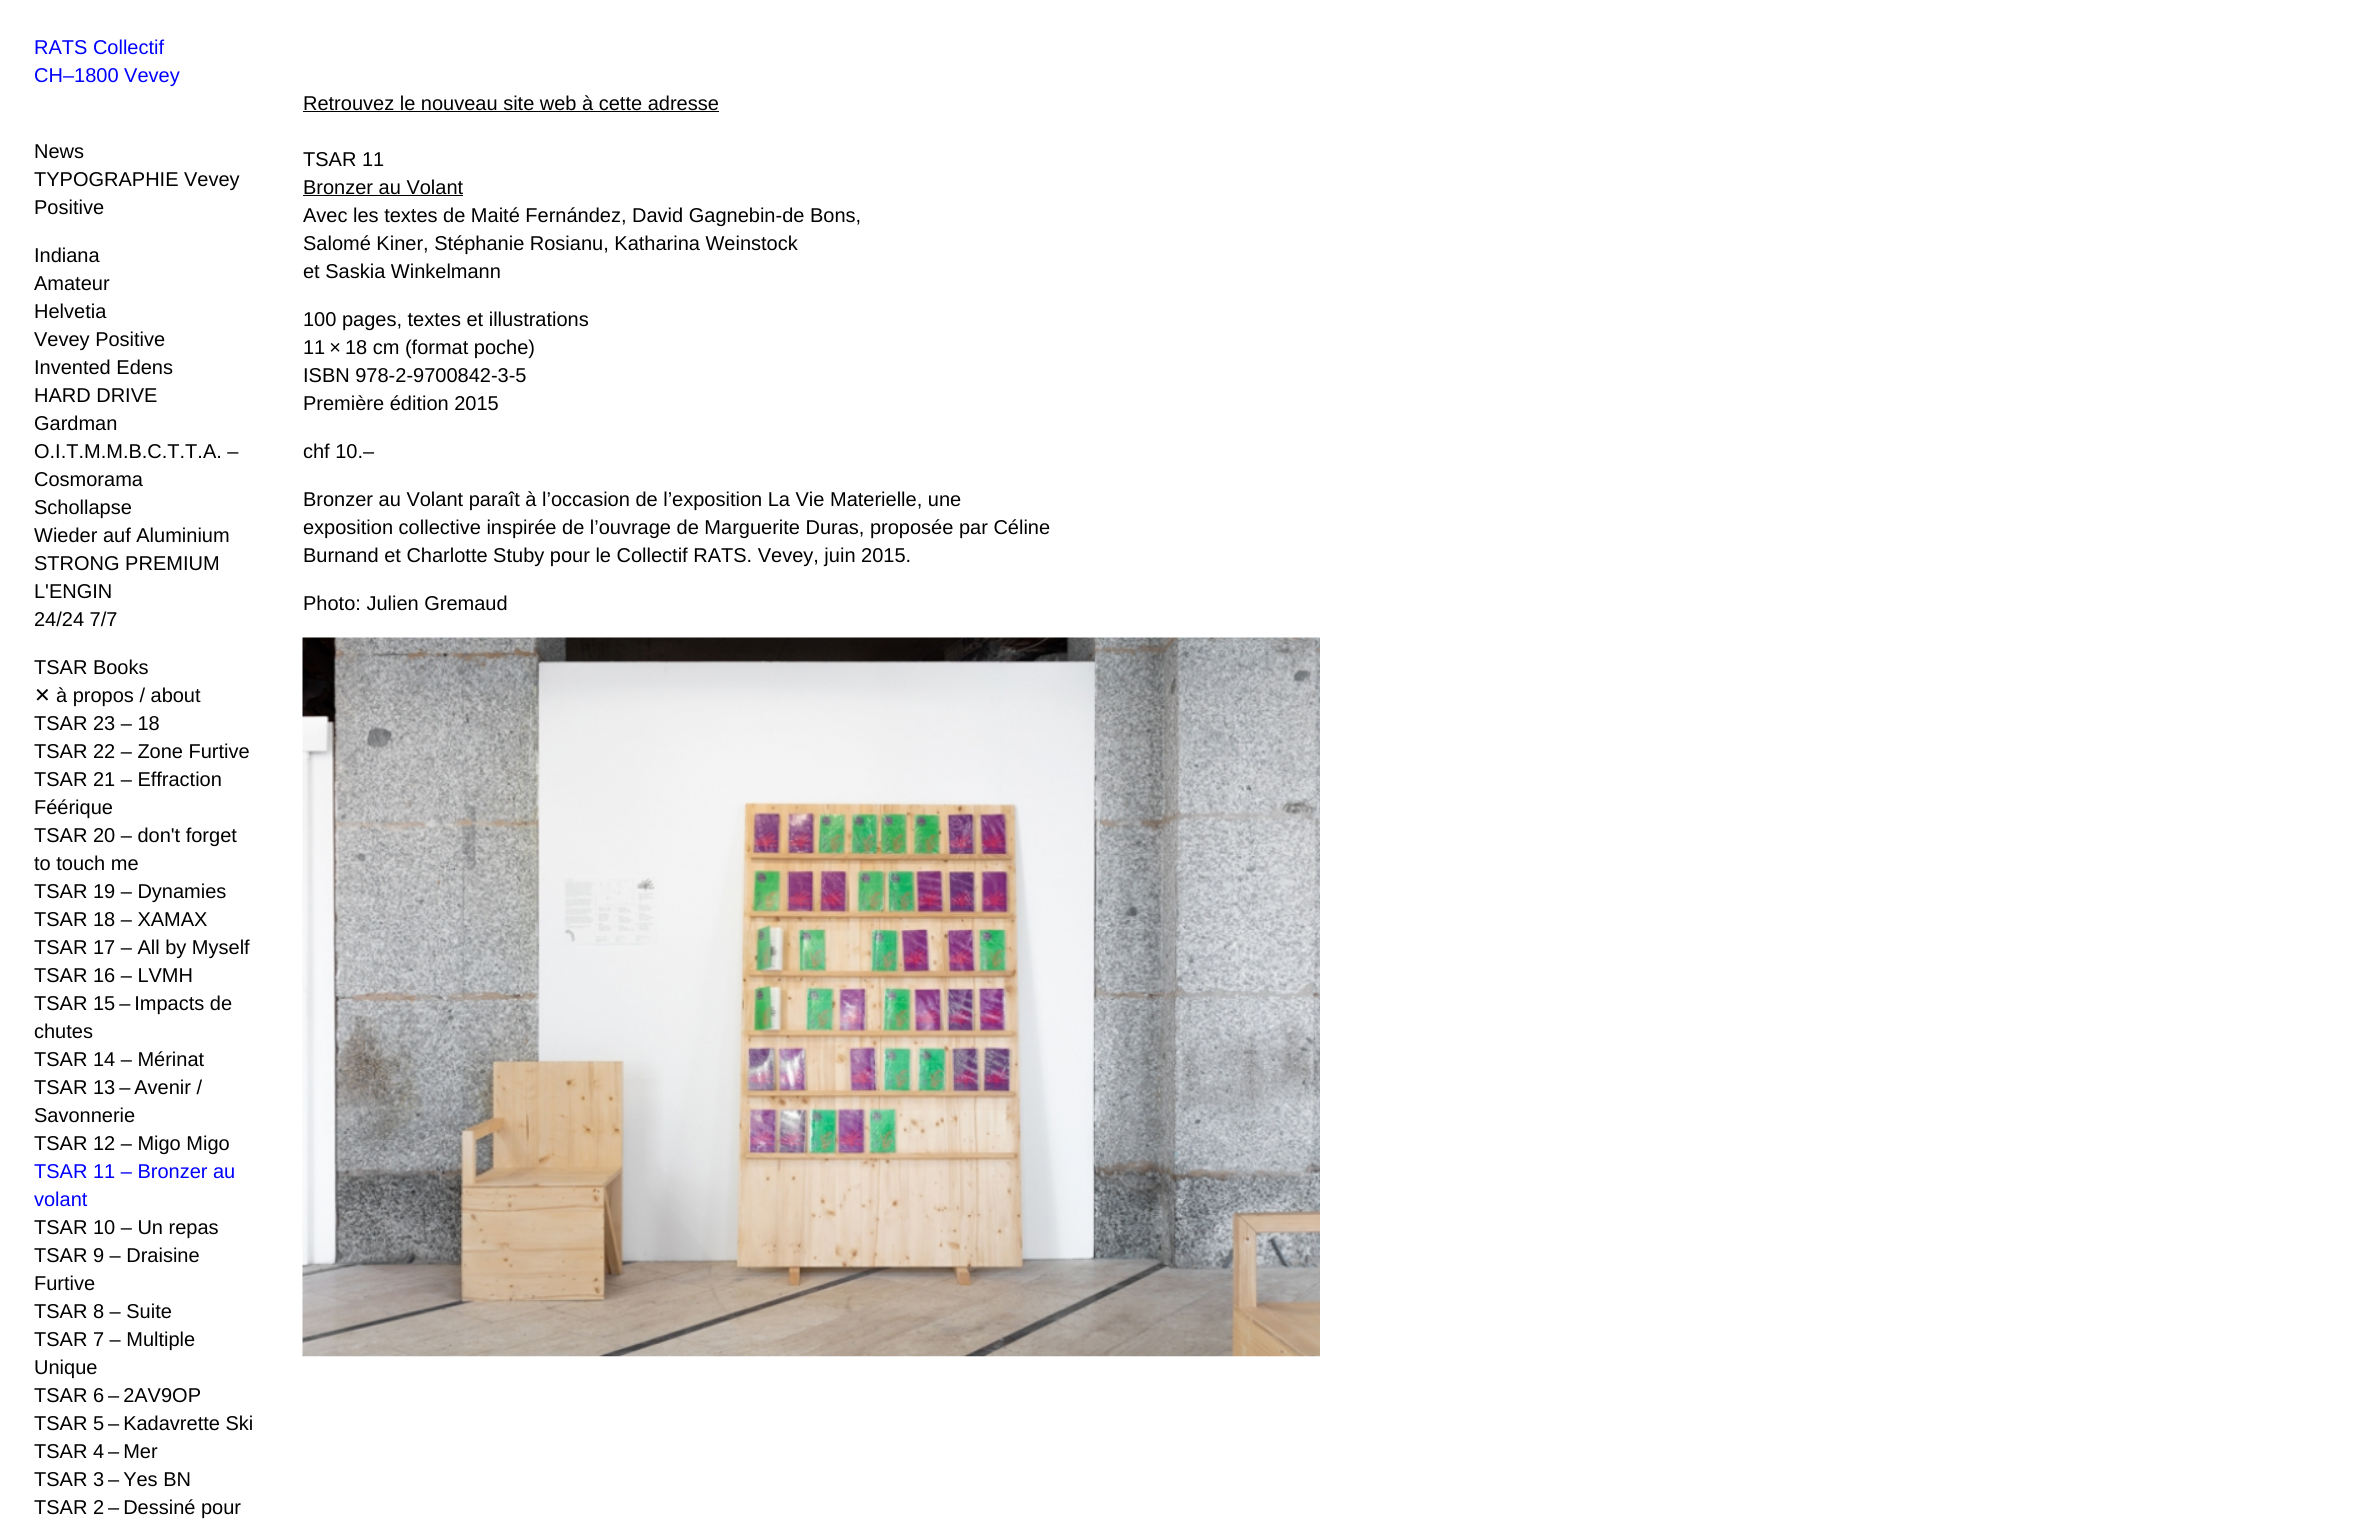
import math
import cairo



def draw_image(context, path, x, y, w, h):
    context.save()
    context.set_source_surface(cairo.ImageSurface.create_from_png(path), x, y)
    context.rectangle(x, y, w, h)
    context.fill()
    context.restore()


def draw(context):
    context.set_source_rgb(1, 1, 1)
    context.paint()
    context.set_source_rgb(0, 0, 0)
    context.rectangle(303, 111, 416, 1)
    context.fill()
    context.rectangle(303, 195, 160, 1)
    context.fill()
    draw_image(context, "images/1.png", 302, 637, 1018, 720)
    context.select_font_face("Liberation Sans")
    context.set_font_size(20)
    context.set_source_rgb(0, 0, 1)
    context.move_to(34, 54)
    context.show_text("RATS Collectif")
    context.move_to(34, 82)
    context.show_text("CH–1800 Vevey")
    context.set_source_rgb(0, 0, 0)
    context.move_to(34, 158)
    context.show_text("News")
    context.move_to(34, 186)
    context.show_text("TYPOGRAPHIE Vevey")
    context.move_to(34, 214)
    context.show_text("Positive")
    context.move_to(34, 262)
    context.show_text("Indiana")
    context.move_to(34, 290)
    context.show_text("Amateur")
    context.move_to(34, 318)
    context.show_text("Helvetia")
    context.move_to(34, 346)
    context.show_text("Vevey Positive")
    context.move_to(34, 374)
    context.show_text("Invented Edens")
    context.move_to(34, 402)
    context.show_text("HARD DRIVE")
    context.move_to(34, 430)
    context.show_text("Gardman")
    context.move_to(34, 458)
    context.show_text("O.I.T.M.M.B.C.T.T.A. –")
    context.move_to(34, 486)
    context.show_text("Cosmorama")
    context.move_to(34, 514)
    context.show_text("Schollapse")
    context.move_to(34, 542)
    context.show_text("Wieder auf Aluminium")
    context.move_to(34, 570)
    context.show_text("STRONG PREMIUM")
    context.move_to(34, 598)
    context.show_text("L'ENGIN")
    context.move_to(34, 626)
    context.show_text("24/24 7/7")
    context.move_to(34, 674)
    context.show_text("TSAR Books")
    context.select_font_face("DejaVu Sans")
    context.move_to(34, 702)
    context.show_text("✕")
    context.select_font_face("Liberation Sans")
    context.move_to(56, 702)
    context.show_text("à propos / about")
    context.move_to(34, 730)
    context.show_text("TSAR 23 – 18")
    context.move_to(34, 758)
    context.show_text("TSAR 22 – Zone Furtive")
    context.move_to(34, 786)
    context.show_text("TSAR 21 – Effraction")
    context.move_to(34, 814)
    context.show_text("Féérique")
    context.move_to(34, 842)
    context.show_text("TSAR 20 – don't forget")
    context.move_to(34, 870)
    context.show_text("to touch me")
    context.move_to(34, 898)
    context.show_text("TSAR 19 – Dynamies")
    context.move_to(34, 926)
    context.show_text("TSAR 18 – XAMAX")
    context.move_to(34, 954)
    context.show_text("TSAR 17 – All by Myself")
    context.move_to(34, 982)
    context.show_text("TSAR 16 – LVMH")
    context.move_to(34, 1010)
    context.show_text("TSAR 15 – Impacts de")
    context.move_to(34, 1038)
    context.show_text("chutes")
    context.move_to(34, 1066)
    context.show_text("TSAR 14 – Mérinat")
    context.move_to(34, 1094)
    context.show_text("TSAR 13 – Avenir /")
    context.move_to(34, 1122)
    context.show_text("Savonnerie")
    context.move_to(34, 1150)
    context.show_text("TSAR 12 – Migo Migo")
    context.set_source_rgb(0, 0, 1)
    context.move_to(34, 1178)
    context.show_text("TSAR 11 – Bronzer au")
    context.move_to(34, 1206)
    context.show_text("volant")
    context.set_source_rgb(0, 0, 0)
    context.move_to(34, 1234)
    context.show_text("TSAR 10 – Un repas")
    context.move_to(34, 1262)
    context.show_text("TSAR 9 – Draisine")
    context.move_to(34, 1290)
    context.show_text("Furtive")
    context.move_to(34, 1318)
    context.show_text("TSAR 8 – Suite")
    context.move_to(34, 1346)
    context.show_text("TSAR 7 – Multiple")
    context.move_to(34, 1374)
    context.show_text("Unique")
    context.move_to(34, 1402)
    context.show_text("TSAR 6 – 2AV9OP")
    context.move_to(34, 1430)
    context.show_text("TSAR 5 – Kadavrette Ski")
    context.move_to(34, 1458)
    context.show_text("TSAR 4 – Mer")
    context.move_to(34, 1486)
    context.show_text("TSAR 3 – Yes BN")
    context.move_to(34, 1514)
    context.show_text("TSAR 2 – Dessiné pour")
    context.move_to(303, 110)
    context.show_text("Retrouvez le nouveau site web à cette adresse")
    context.move_to(303, 166)
    context.show_text("TSAR 11")
    context.move_to(303, 194)
    context.show_text("Bronzer au Volant")
    context.move_to(303, 222)
    context.show_text("Avec les textes de Maité Fernández, David Gagnebin-de Bons,")
    context.move_to(303, 250)
    context.show_text("Salomé Kiner, Stéphanie Rosianu, Katharina Weinstock")
    context.move_to(303, 278)
    context.show_text("et Saskia Winkelmann")
    context.move_to(303, 326)
    context.show_text("100 pages, textes et illustrations")
    context.move_to(303, 354)
    context.show_text("11 × 18 cm (format poche)")
    context.move_to(303, 382)
    context.show_text("ISBN 978-2-9700842-3-5")
    context.move_to(303, 410)
    context.show_text("Première édition 2015")
    context.move_to(303, 458)
    context.show_text("chf 10.–")
    context.move_to(303, 506)
    context.show_text("Bronzer au Volant paraît à l’occasion de l’exposition La Vie Materielle, une")
    context.move_to(303, 534)
    context.show_text("exposition collective inspirée de l’ouvrage de Marguerite Duras, proposée par Céline")
    context.move_to(303, 562)
    context.show_text("Burnand et Charlotte Stuby pour le Collectif RATS. Vevey, juin 2015.")
    context.move_to(303, 610)
    context.show_text("Photo: Julien Gremaud")


surface = cairo.ImageSurface(cairo.Format.RGB24, 2377, 1526)
context = cairo.Context(surface)
options = cairo.FontOptions()
options.set_hint_metrics(cairo.HintMetrics.OFF)
options.set_hint_style(cairo.HintStyle.NONE)
context.set_font_options(options)
context.set_miter_limit(4)
draw(context)
surface.write_to_png("out.png")
